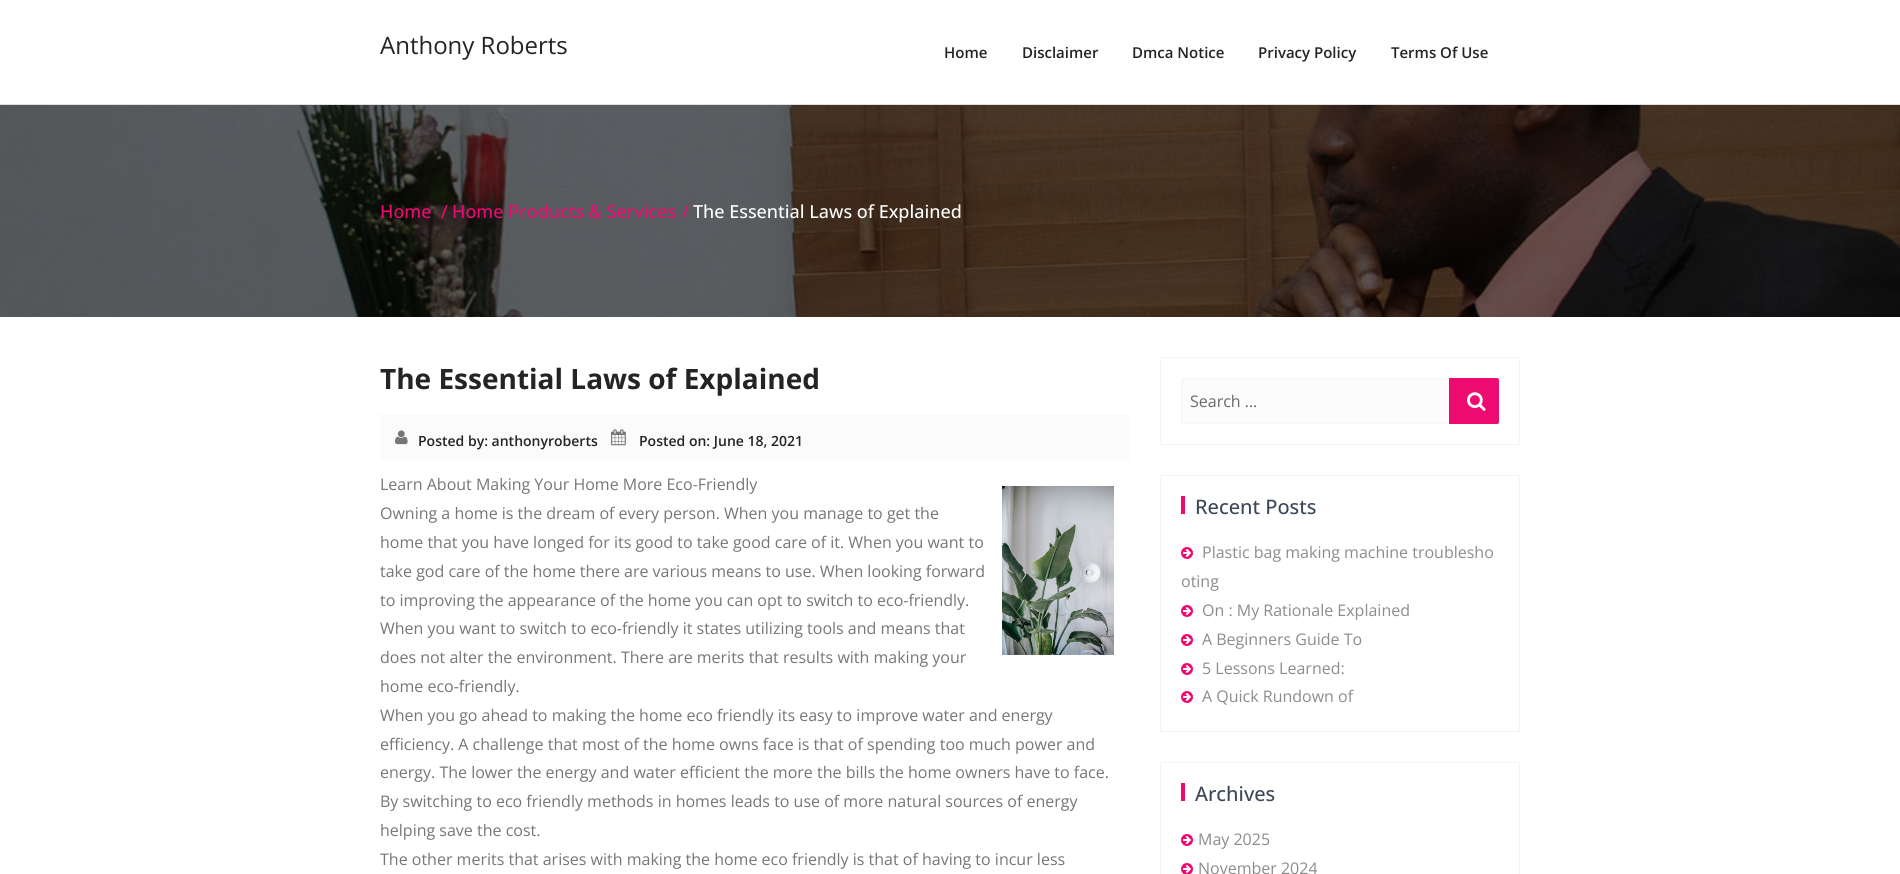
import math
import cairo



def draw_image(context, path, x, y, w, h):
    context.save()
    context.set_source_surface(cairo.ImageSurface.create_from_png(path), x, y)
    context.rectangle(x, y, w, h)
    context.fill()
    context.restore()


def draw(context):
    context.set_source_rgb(1, 1, 1)
    context.paint()
    context.set_source_rgb(224 / 255, 224 / 255, 224 / 255)
    context.rectangle(0, 104, 1900, 1)
    context.fill()
    draw_image(context, "images/1.png", 0, 105, 1900, 212)
    context.set_source_rgb(251 / 255, 251 / 255, 251 / 255)
    context.rectangle(380, 414, 750, 46)
    context.fill()
    draw_image(context, "images/2.png", 395, 430, 13, 15)
    draw_image(context, "images/3.png", 611, 429, 15, 17)
    draw_image(context, "images/4.png", 1002, 486, 112, 169)
    context.rectangle(1160.5, 357.5, 359, 87)
    context.set_source_rgb(245 / 255, 245 / 255, 245 / 255)
    context.set_line_width(1)
    context.stroke()
    context.set_source_rgb(252 / 255, 252 / 255, 252 / 255)
    context.new_path()
    context.move_to(1183, 379)
    context.line_to(1456, 379)
    context.line_to(1456, 423)
    context.line_to(1183, 423)
    context.curve_to(1182.5, 423, 1182, 422.5, 1182, 422)
    context.line_to(1182, 380)
    context.curve_to(1182, 379.5, 1182.5, 379, 1183, 379)
    context.close_path()
    context.fill_preserve()
    context.set_source_rgb(247 / 255, 247 / 255, 247 / 255)
    context.set_line_width(2)
    context.stroke()
    context.set_source_rgb(237 / 255, 10 / 255, 113 / 255)
    context.new_path()
    context.move_to(1450, 379)
    context.line_to(1497, 379)
    context.curve_to(1497.5, 379, 1498, 379.5, 1498, 380)
    context.line_to(1498, 422)
    context.curve_to(1498, 422.5, 1497.5, 423, 1497, 423)
    context.line_to(1450, 423)
    context.close_path()
    context.fill_preserve()
    context.stroke()
    draw_image(context, "images/5.png", 1467, 392, 19, 19)
    context.rectangle(1160.5, 475.5, 359, 256)
    context.set_source_rgb(245 / 255, 245 / 255, 245 / 255)
    context.set_line_width(1)
    context.stroke()
    context.set_source_rgb(237 / 255, 10 / 255, 113 / 255)
    context.rectangle(1181, 496, 4, 18)
    context.fill()
    draw_image(context, "images/6.png", 1181, 547, 12, 12)
    draw_image(context, "images/6.png", 1181, 605, 12, 12)
    draw_image(context, "images/6.png", 1181, 634, 12, 12)
    draw_image(context, "images/6.png", 1181, 663, 12, 12)
    draw_image(context, "images/6.png", 1181, 691, 12, 12)
    context.rectangle(1160.5, 762.5, 359, 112)
    context.set_source_rgb(245 / 255, 245 / 255, 245 / 255)
    context.stroke()
    context.set_source_rgb(237 / 255, 10 / 255, 113 / 255)
    context.rectangle(1181, 783, 4, 18)
    context.fill()
    draw_image(context, "images/6.png", 1181, 834, 12, 12)
    draw_image(context, "images/7.png", 1181, 863, 12, 11)
    context.select_font_face("Open Sans")
    context.set_font_size(24)
    context.set_source_rgb(36 / 255, 36 / 255, 36 / 255)
    context.move_to(380, 54)
    context.show_text("Anthony Roberts")
    context.select_font_face("Open Sans SemiBold")
    context.set_font_size(15)
    context.move_to(944, 58)
    context.show_text("Home")
    context.move_to(1022, 58)
    context.show_text("Disclaimer")
    context.move_to(1132, 58)
    context.show_text("Dmca Notice")
    context.move_to(1258, 58)
    context.show_text("Privacy Policy")
    context.move_to(1391, 58)
    context.show_text("Terms Of Use")
    context.select_font_face("Open Sans Medium")
    context.set_font_size(18)
    context.set_source_rgb(237 / 255, 10 / 255, 113 / 255)
    context.move_to(380, 218)
    context.show_text("Home")
    context.move_to(441, 218)
    context.show_text("/")
    context.move_to(452, 218)
    context.show_text("Home Products & Services")
    context.move_to(682, 218)
    context.show_text("/")
    context.set_source_rgb(1, 1, 1)
    context.move_to(693, 218)
    context.show_text("The Essential Laws of Explained")
    context.select_font_face("Open Sans", cairo.FontSlant.NORMAL, cairo.FontWeight.BOLD)
    context.set_font_size(28)
    context.set_source_rgb(36 / 255, 36 / 255, 36 / 255)
    context.move_to(380, 389)
    context.show_text("The Essential Laws of Explained")
    context.select_font_face("Open Sans SemiBold")
    context.set_font_size(14)
    context.move_to(418, 446)
    context.show_text("Posted by: anthonyroberts")
    context.move_to(639, 446)
    context.show_text("Posted on: June 18, 2021")
    context.select_font_face("Open Sans")
    context.set_font_size(16)
    context.set_source_rgb(118 / 255, 118 / 255, 118 / 255)
    context.move_to(380, 490)
    context.show_text("Learn About Making Your Home More Eco-Friendly")
    context.move_to(380, 519)
    context.show_text("Owning a home is the dream of every person. When you manage to get the")
    context.move_to(380, 548)
    context.show_text("home that you have longed for its good to take good care of it. When you want to")
    context.move_to(380, 577)
    context.show_text("take god care of the home there are various means to use. When looking forward")
    context.move_to(380, 606)
    context.show_text("to improving the appearance of the home you can opt to switch to eco-friendly.")
    context.move_to(380, 634)
    context.show_text("When you want to switch to eco-friendly it states utilizing tools and means that")
    context.move_to(380, 663)
    context.show_text("does not alter the environment. There are merits that results with making your")
    context.move_to(380, 692)
    context.show_text("home eco-friendly.")
    context.move_to(380, 721)
    context.show_text("When you go ahead to making the home eco friendly its easy to improve water and energy")
    context.move_to(380, 750)
    context.show_text("efficiency. A challenge that most of the home owns face is that of spending too much power and")
    context.move_to(380, 778)
    context.show_text("energy. The lower the energy and water efficient the more the bills the home owners have to face.")
    context.move_to(380, 807)
    context.show_text("By switching to eco friendly methods in homes leads to use of more natural sources of energy")
    context.move_to(380, 836)
    context.show_text("helping save the cost.")
    context.move_to(380, 865)
    context.show_text("The other merits that arises with making the home eco friendly is that of having to incur less")
    context.set_source_rgb(104 / 255, 104 / 255, 104 / 255)
    context.move_to(1190, 407)
    context.show_text("Search …")
    context.select_font_face("Open Sans Medium")
    context.set_font_size(20)
    context.set_source_rgb(60 / 255, 72 / 255, 88 / 255)
    context.move_to(1195, 514)
    context.show_text("Recent Posts")
    context.select_font_face("Open Sans")
    context.set_font_size(16)
    context.set_source_rgb(140 / 255, 140 / 255, 140 / 255)
    context.move_to(1202, 558)
    context.show_text("Plastic bag making machine troublesho")
    context.move_to(1181, 587)
    context.show_text("oting")
    context.move_to(1202, 616)
    context.show_text("On : My Rationale Explained")
    context.move_to(1202, 645)
    context.show_text("A Beginners Guide To")
    context.move_to(1202, 674)
    context.show_text("5 Lessons Learned:")
    context.move_to(1202, 702)
    context.show_text("A Quick Rundown of")
    context.select_font_face("Open Sans Medium")
    context.set_font_size(20)
    context.set_source_rgb(60 / 255, 72 / 255, 88 / 255)
    context.move_to(1195, 801)
    context.show_text("Archives")
    context.select_font_face("Open Sans")
    context.set_font_size(16)
    context.set_source_rgb(140 / 255, 140 / 255, 140 / 255)
    context.move_to(1198, 845)
    context.show_text("May 2025")
    context.move_to(1198, 874)
    context.show_text("November 2024")


surface = cairo.ImageSurface(cairo.Format.RGB24, 1900, 874)
context = cairo.Context(surface)
options = cairo.FontOptions()
options.set_hint_metrics(cairo.HintMetrics.OFF)
options.set_hint_style(cairo.HintStyle.NONE)
context.set_font_options(options)
context.set_miter_limit(4)
draw(context)
surface.write_to_png("out.png")
